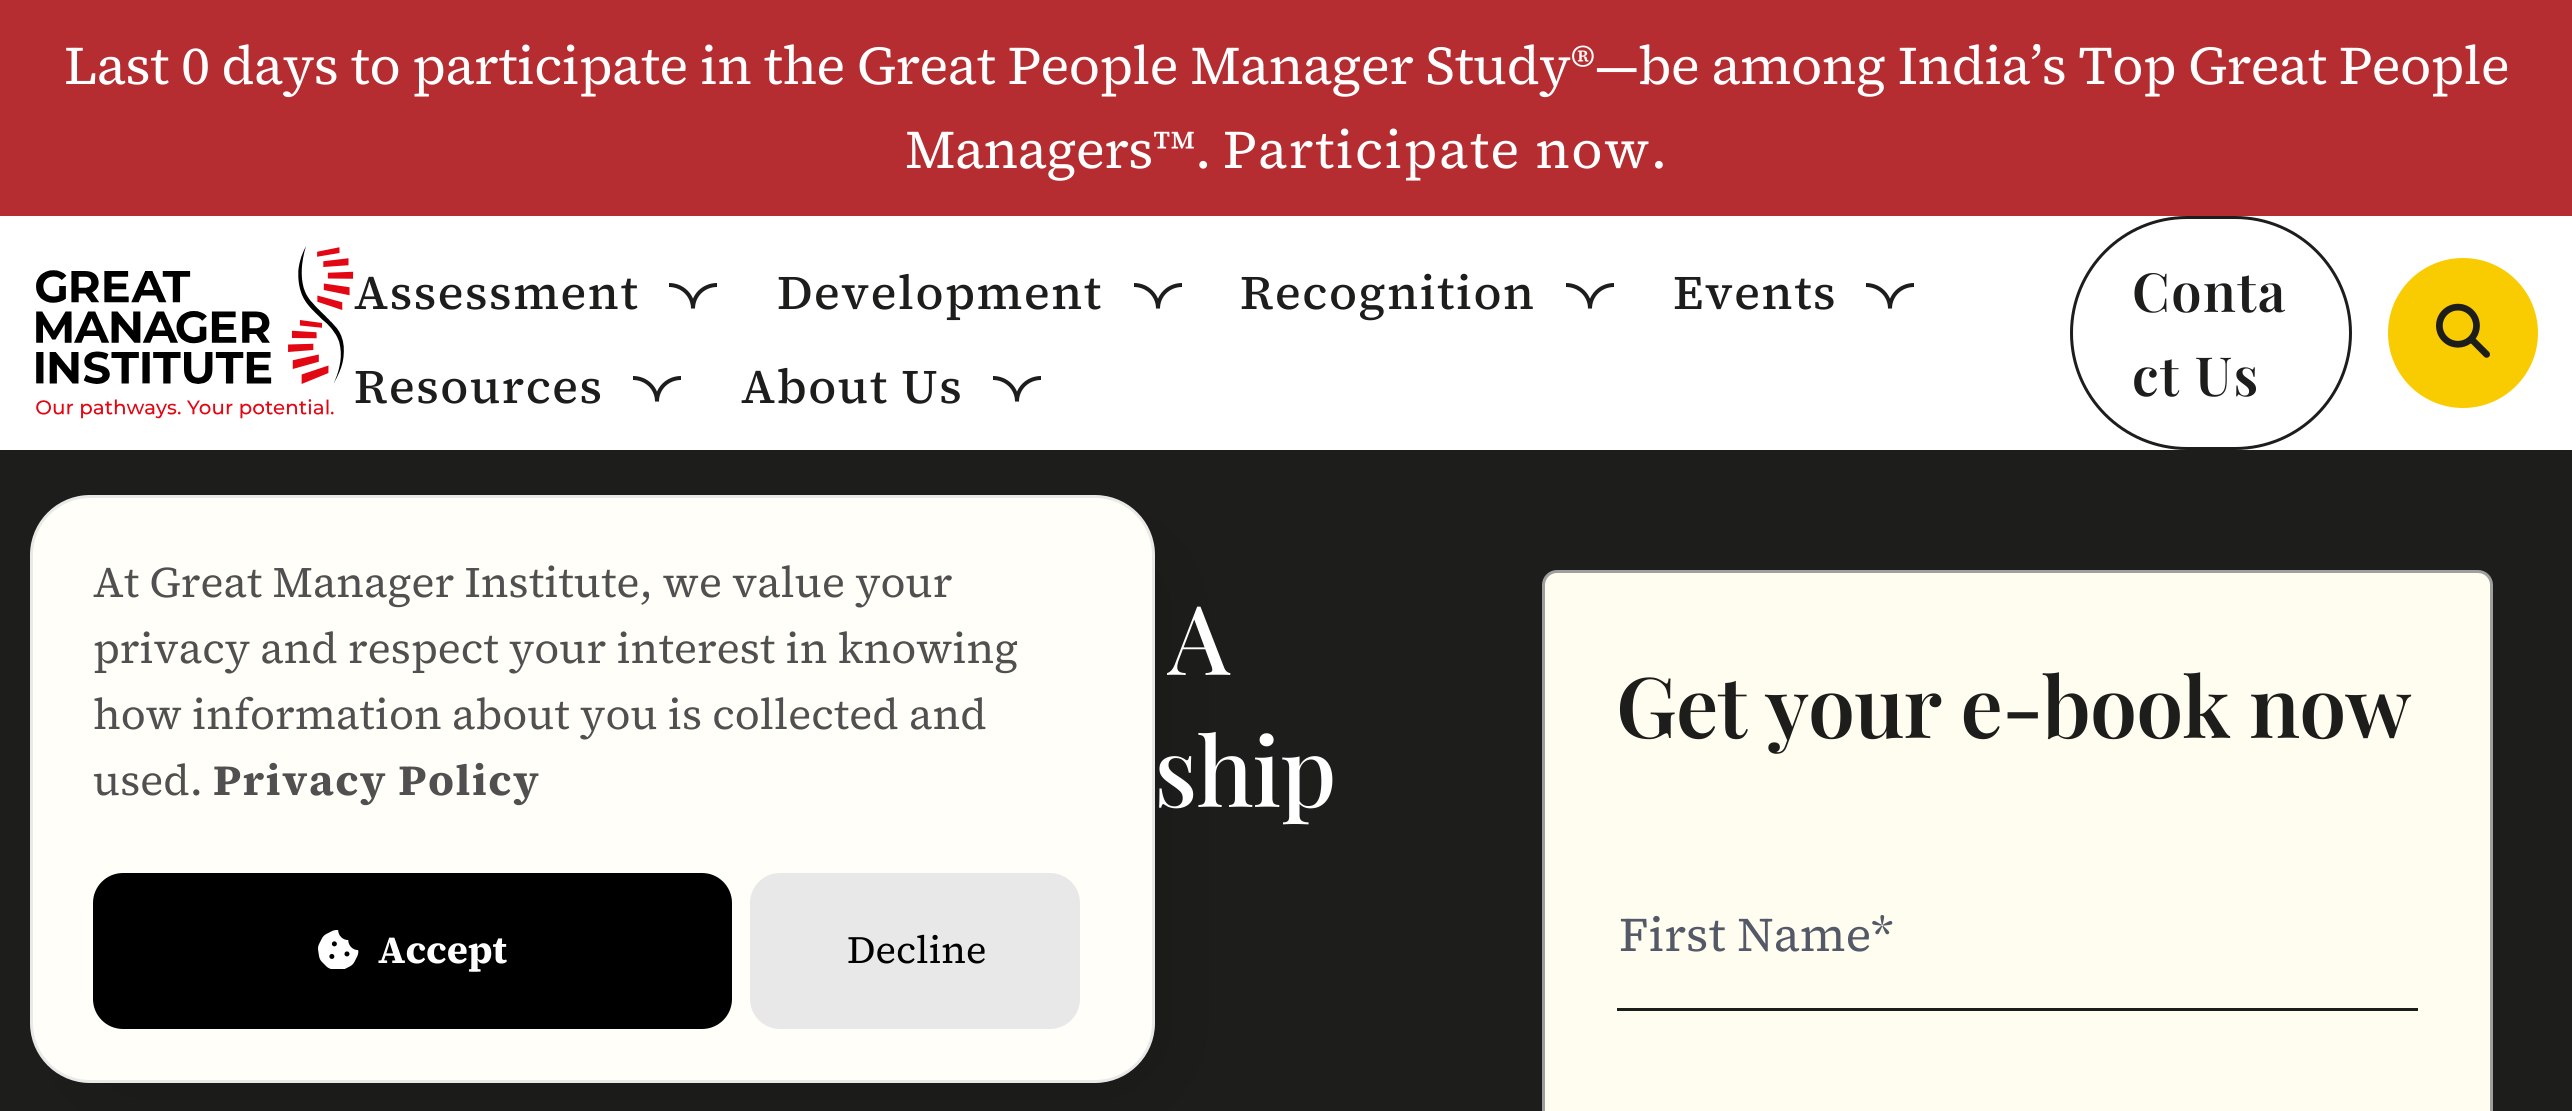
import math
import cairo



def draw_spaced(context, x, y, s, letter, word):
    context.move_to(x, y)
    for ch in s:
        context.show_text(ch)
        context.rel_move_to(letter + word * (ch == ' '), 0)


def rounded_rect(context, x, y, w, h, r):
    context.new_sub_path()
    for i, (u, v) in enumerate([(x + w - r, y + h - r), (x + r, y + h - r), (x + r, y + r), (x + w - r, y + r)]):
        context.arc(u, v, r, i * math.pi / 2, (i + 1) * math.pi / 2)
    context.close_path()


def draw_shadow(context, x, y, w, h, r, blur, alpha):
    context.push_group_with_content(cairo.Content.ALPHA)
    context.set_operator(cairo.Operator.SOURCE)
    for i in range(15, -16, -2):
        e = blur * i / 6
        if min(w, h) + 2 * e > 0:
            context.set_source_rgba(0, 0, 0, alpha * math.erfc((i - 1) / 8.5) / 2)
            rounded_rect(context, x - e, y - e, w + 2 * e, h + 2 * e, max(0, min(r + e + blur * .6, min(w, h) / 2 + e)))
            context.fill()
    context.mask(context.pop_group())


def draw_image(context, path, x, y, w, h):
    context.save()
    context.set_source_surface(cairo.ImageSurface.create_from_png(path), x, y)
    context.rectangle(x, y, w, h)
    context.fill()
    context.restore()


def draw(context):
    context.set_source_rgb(29 / 255, 29 / 255, 27 / 255)
    context.paint()
    context.set_source_rgb(182 / 255, 45 / 255, 49 / 255)
    context.rectangle(0, 0, 2572, 216)
    context.fill()
    context.set_source_rgb(1, 1, 1)
    context.rectangle(0, 216, 2572, 234)
    context.fill()
    draw_image(context, "images/1.png", 36, 246, 318, 173)
    context.new_path()
    context.move_to(693, 308.5)
    context.curve_to(693, 295.5, 682.5, 285, 669, 285)
    context.move_to(693, 308.5)
    context.curve_to(693, 295.5, 703.5, 285, 717, 285)
    context.set_source_rgb(29 / 255, 29 / 255, 27 / 255)
    context.set_line_width(4)
    context.stroke()
    context.new_path()
    context.move_to(1158, 308.5)
    context.curve_to(1158, 295.5, 1147.5, 285, 1134, 285)
    context.move_to(1158, 308.5)
    context.curve_to(1158, 295.5, 1168.5, 285, 1182, 285)
    context.stroke()
    context.new_path()
    context.move_to(1590, 308.5)
    context.curve_to(1590, 295.5, 1579.5, 285, 1566, 285)
    context.move_to(1590, 308.5)
    context.curve_to(1590, 295.5, 1600.5, 285, 1614, 285)
    context.stroke()
    context.new_path()
    context.move_to(1890, 308.5)
    context.curve_to(1890, 295.5, 1879.5, 285, 1866, 285)
    context.move_to(1890, 308.5)
    context.curve_to(1890, 295.5, 1900.5, 285, 1914, 285)
    context.stroke()
    context.new_path()
    context.move_to(657, 401.5)
    context.curve_to(657, 388.5, 646.5, 378, 633, 378)
    context.move_to(657, 401.5)
    context.curve_to(657, 388.5, 667.5, 378, 681, 378)
    context.stroke()
    context.new_path()
    context.move_to(1017, 401.5)
    context.curve_to(1017, 388.5, 1006.5, 378, 993, 378)
    context.move_to(1017, 401.5)
    context.curve_to(1017, 388.5, 1027.5, 378, 1041, 378)
    context.stroke()
    rounded_rect(context, 2071.5, 217.5, 279, 231, 115.5)
    context.set_line_width(3)
    context.stroke()
    context.set_source_rgb(249 / 255, 204 / 255, 1 / 255)
    context.arc(2463, 333, 75, 0, 2 * math.pi)
    context.fill()
    draw_image(context, "images/2.png", 2436, 303, 54, 55)
    context.set_source_rgb(1, 252 / 255, 240 / 255)
    rounded_rect(context, 1543.5, 571.5, 948, 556, 13.5)
    context.fill_preserve()
    context.set_source_rgb(159 / 255, 159 / 255, 159 / 255)
    context.stroke()
    context.set_source_rgb(29 / 255, 29 / 255, 27 / 255)
    context.rectangle(1617, 1008, 801, 3)
    context.fill()
    context.set_source_rgb(0, 0, 0)
    draw_shadow(context, 99, 564, 1047, 510, 21, 54, 0.15)
    context.set_source_rgb(1, 254 / 255, 248 / 255)
    rounded_rect(context, 31.5, 496.5, 1122, 585, 58.5)
    context.fill_preserve()
    context.set_source_rgb(233 / 255, 233 / 255, 233 / 255)
    context.stroke()
    context.set_source_rgb(0, 0, 0)
    rounded_rect(context, 93, 873, 639, 156, 30)
    context.fill()
    draw_image(context, "images/3.png", 318, 930, 41, 39)
    context.set_source_rgb(232 / 255, 232 / 255, 232 / 255)
    rounded_rect(context, 750, 873, 330, 156, 30)
    context.fill()
    context.select_font_face("Source Serif 4")
    context.set_font_size(54)
    context.set_source_rgb(1, 1, 1)
    draw_spaced(context, 64, 84, "Last 0 days to participate in the Great People Manager Study®—be among India’s Top Great People", -0.55, 0)
    draw_spaced(context, 905, 168, "Managers™.", -0.55, 0)
    draw_spaced(context, 1223, 168, "Participate now.", 1.5, 0)
    context.select_font_face("Source Serif 4 Medium")
    context.set_font_size(48)
    context.set_source_rgb(29 / 255, 29 / 255, 27 / 255)
    draw_spaced(context, 354, 309, "Assessment", 1.5, 0)
    draw_spaced(context, 777, 309, "Development", 1.5, 0)
    draw_spaced(context, 1240, 309, "Recognition", 1.5, 0)
    draw_spaced(context, 1673, 309, "Events", 1.5, 0)
    draw_spaced(context, 354, 403, "Resources", 1.5, 0)
    draw_spaced(context, 741, 403, "About Us", 1.5, 0)
    context.select_font_face("Playfair Display SemiBold")
    context.set_font_size(54)
    draw_spaced(context, 2132, 312, "Conta", 1.5, 0)
    draw_spaced(context, 2132, 396, "ct Us", 1.5, 0)
    context.select_font_face("Playfair Display Medium")
    context.set_font_size(96)
    context.set_source_rgb(1, 1, 1)
    draw_spaced(context, 1168, 675, "A", -1, 0)
    draw_spaced(context, 1154, 807, "ship", -1, 0)
    context.select_font_face("Playfair Display SemiBold")
    context.set_font_size(84)
    context.set_source_rgb(29 / 255, 29 / 255, 27 / 255)
    draw_spaced(context, 1616, 738, "Get your e-book now", -0.8, 0)
    context.select_font_face("Source Serif 4")
    context.set_font_size(48)
    context.set_source_rgb(83 / 255, 89 / 255, 103 / 255)
    context.move_to(1619, 951)
    context.show_text("First Name*")
    context.set_font_size(43.2)
    context.set_source_rgb(80 / 255, 80 / 255, 80 / 255)
    context.move_to(93, 597)
    context.show_text("At Great Manager Institute, we value your")
    context.move_to(93, 663)
    context.show_text("privacy and respect your interest in knowing")
    context.move_to(93, 729)
    context.show_text("how information about you is collected and")
    context.move_to(93, 795)
    context.show_text("used.")
    context.select_font_face("Source Serif 4", cairo.FontSlant.NORMAL, cairo.FontWeight.BOLD)
    draw_spaced(context, 213, 795, "Privacy Policy", 1.5, 0)
    context.set_font_size(38.5)
    context.set_source_rgb(1, 1, 1)
    context.move_to(378, 963)
    context.show_text("Accept")
    context.select_font_face("Source Serif 4")
    context.set_source_rgb(0, 0, 0)
    context.move_to(847, 963)
    context.show_text("Decline")


surface = cairo.ImageSurface(cairo.Format.RGB24, 2572, 1111)
context = cairo.Context(surface)
options = cairo.FontOptions()
options.set_hint_metrics(cairo.HintMetrics.OFF)
options.set_hint_style(cairo.HintStyle.NONE)
context.set_font_options(options)
context.set_miter_limit(4)
draw(context)
surface.write_to_png("out.png")
